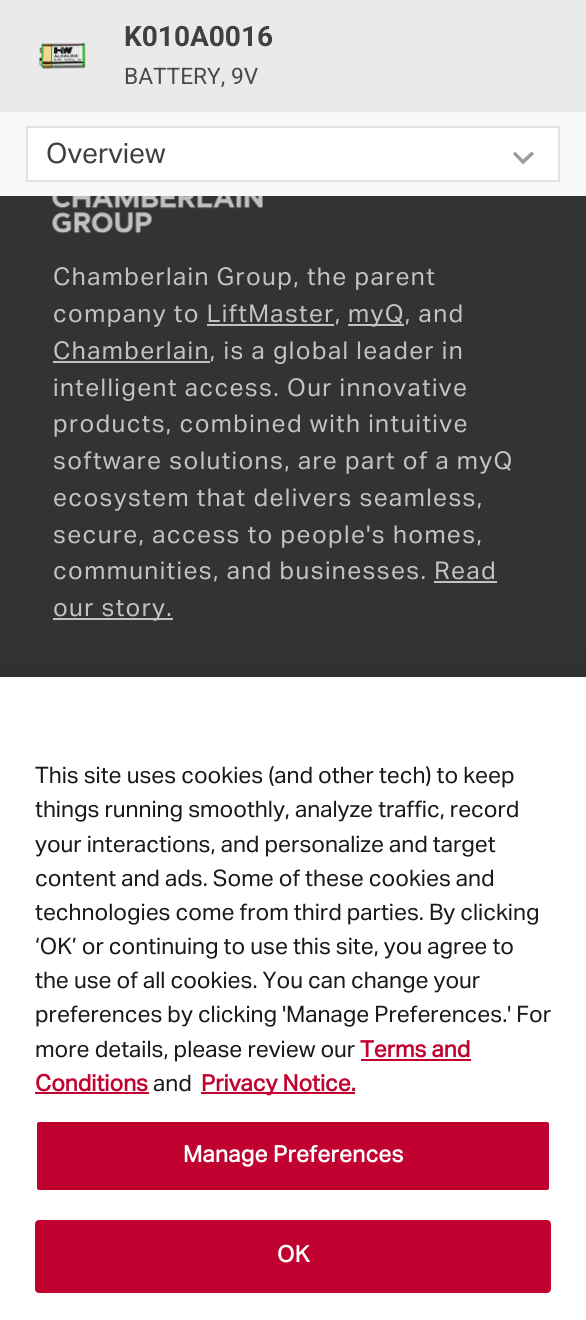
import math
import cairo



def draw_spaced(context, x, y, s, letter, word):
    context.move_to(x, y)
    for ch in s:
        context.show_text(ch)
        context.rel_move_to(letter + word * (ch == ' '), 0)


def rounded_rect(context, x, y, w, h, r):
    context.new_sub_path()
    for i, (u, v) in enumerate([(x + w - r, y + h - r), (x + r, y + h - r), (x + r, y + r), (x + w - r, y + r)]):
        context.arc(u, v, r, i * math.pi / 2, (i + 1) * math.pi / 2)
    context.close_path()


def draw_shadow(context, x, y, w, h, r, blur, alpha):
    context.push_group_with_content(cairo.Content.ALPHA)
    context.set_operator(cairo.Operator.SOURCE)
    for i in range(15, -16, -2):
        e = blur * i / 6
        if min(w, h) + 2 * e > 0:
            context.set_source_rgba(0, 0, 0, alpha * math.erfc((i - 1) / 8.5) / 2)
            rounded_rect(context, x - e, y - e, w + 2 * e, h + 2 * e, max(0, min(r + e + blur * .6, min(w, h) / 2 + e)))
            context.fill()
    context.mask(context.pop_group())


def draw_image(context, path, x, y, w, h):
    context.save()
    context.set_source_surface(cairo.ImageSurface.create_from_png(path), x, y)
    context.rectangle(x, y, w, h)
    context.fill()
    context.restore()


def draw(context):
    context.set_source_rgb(51 / 255, 51 / 255, 51 / 255)
    context.paint()
    context.set_source_rgb(248 / 255, 248 / 255, 248 / 255)
    context.rectangle(0, 112, 586, 84)
    context.fill()
    context.set_source_rgb(234 / 255, 234 / 255, 234 / 255)
    context.rectangle(0, 0, 586, 112)
    context.fill()
    draw_image(context, "images/1.png", 38, 42, 48, 27)
    context.set_source_rgb(1, 1, 1)
    context.rectangle(27, 127, 532, 54)
    context.fill_preserve()
    context.set_source_rgb(227 / 255, 227 / 255, 227 / 255)
    context.stroke()
    context.set_source_rgb(155 / 255, 155 / 255, 155 / 255)
    context.new_path()
    context.move_to(515, 151.5)
    context.line_to(523, 159.5)
    context.line_to(531.5, 151.5)
    context.line_to(534, 154)
    context.line_to(523, 164.5)
    context.line_to(513, 154)
    context.close_path()
    context.fill()
    draw_image(context, "images/2.png", 52, 196, 211, 38)
    context.set_source_rgb(194 / 255, 194 / 255, 194 / 255)
    context.rectangle(348, 324, 56, 2)
    context.fill()
    context.rectangle(207, 324, 127, 2)
    context.fill()
    context.rectangle(53, 361, 157, 2)
    context.fill()
    context.rectangle(434, 581, 63, 2)
    context.fill()
    context.rectangle(53, 618, 120, 2)
    context.fill()
    context.set_source_rgb(0, 0, 0)
    draw_shadow(context, 0, 677, 586, 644, 0, 16, 0.2)
    context.set_source_rgb(1, 1, 1)
    context.rectangle(0, 677, 586, 643)
    context.fill()
    context.set_source_rgb(193 / 255, 2 / 255, 48 / 255)
    context.rectangle(361, 1059, 110, 2)
    context.fill()
    context.rectangle(35, 1092, 114, 2)
    context.fill()
    context.rectangle(201, 1092, 154, 2)
    context.fill()
    rounded_rect(context, 36, 1121, 514, 70, 3)
    context.fill_preserve()
    context.set_source_rgb(1, 1, 1)
    context.stroke()
    context.set_source_rgb(193 / 255, 2 / 255, 48 / 255)
    rounded_rect(context, 36, 1221, 514, 71, 3)
    context.fill_preserve()
    context.stroke()
    context.select_font_face("Roboto", cairo.FontSlant.NORMAL, cairo.FontWeight.BOLD)
    context.set_font_size(28)
    context.set_source_rgb(64 / 255, 64 / 255, 64 / 255)
    context.move_to(124, 46)
    context.show_text("K010A0016")
    context.select_font_face("Roboto")
    context.set_font_size(22.75)
    context.set_source_rgb(74 / 255, 74 / 255, 74 / 255)
    context.move_to(124, 84)
    context.show_text("BATTERY, 9V")
    context.select_font_face("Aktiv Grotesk")
    context.set_font_size(28)
    context.set_source_rgb(64 / 255, 64 / 255, 64 / 255)
    context.move_to(46, 163)
    context.show_text("Overview")
    context.set_font_size(24.5)
    context.set_source_rgb(194 / 255, 194 / 255, 194 / 255)
    draw_spaced(context, 53, 285, "Chamberlain Group, the parent", 1.4, 0)
    draw_spaced(context, 53, 322, "company to LiftMaster,", 1.4, 0)
    draw_spaced(context, 348, 322, "myQ, and", 1.4, 0)
    draw_spaced(context, 53, 359, "Chamberlain, is a global leader in", 1.4, 0)
    draw_spaced(context, 53, 396, "intelligent access. Our innovative", 1.4, 0)
    draw_spaced(context, 53, 432, "products, combined with intuitive", 1.4, 0)
    draw_spaced(context, 53, 469, "software solutions, are part of a myQ", 1.4, 0)
    draw_spaced(context, 53, 506, "ecosystem that delivers seamless,", 1.4, 0)
    draw_spaced(context, 53, 543, "secure, access to people's homes,", 1.4, 0)
    draw_spaced(context, 53, 579, "communities, and businesses. Read", 1.4, 0)
    draw_spaced(context, 53, 616, "our story.", 1.4, 0)
    context.set_font_size(22.75)
    context.set_source_rgb(25 / 255, 25 / 255, 25 / 255)
    context.move_to(35, 783)
    context.show_text("This site uses cookies (and other tech) to keep")
    context.move_to(35, 817)
    context.show_text("things running smoothly, analyze traffic, record")
    context.move_to(35, 852)
    context.show_text("your interactions, and personalize and target")
    context.move_to(35, 886)
    context.show_text("content and ads. Some of these cookies and")
    context.move_to(35, 920)
    context.show_text("technologies come from third parties. By clicking")
    context.move_to(35, 954)
    context.show_text("‘OK’ or continuing to use this site, you agree to")
    context.move_to(35, 988)
    context.show_text("the use of all cookies. You can change your")
    context.move_to(35, 1022)
    context.show_text("preferences by clicking 'Manage Preferences.' For")
    context.move_to(35, 1057)
    context.show_text("more details, please review our")
    context.select_font_face("Aktiv Grotesk", cairo.FontSlant.NORMAL, cairo.FontWeight.BOLD)
    context.set_source_rgb(193 / 255, 2 / 255, 48 / 255)
    context.move_to(360, 1057)
    context.show_text("Terms and")
    context.move_to(35, 1091)
    context.show_text("Conditions")
    context.select_font_face("Aktiv Grotesk")
    context.set_source_rgb(25 / 255, 25 / 255, 25 / 255)
    context.move_to(153, 1091)
    context.show_text("and")
    context.select_font_face("Aktiv Grotesk", cairo.FontSlant.NORMAL, cairo.FontWeight.BOLD)
    context.set_source_rgb(193 / 255, 2 / 255, 48 / 255)
    context.move_to(201, 1091)
    context.show_text("Privacy Notice.")
    context.set_source_rgb(1, 1, 1)
    draw_spaced(context, 183, 1162, "Manage Preferences", 0.25, 0)
    draw_spaced(context, 277, 1262, "OK", 0.25, 0)


surface = cairo.ImageSurface(cairo.Format.RGB24, 586, 1320)
context = cairo.Context(surface)
options = cairo.FontOptions()
options.set_hint_metrics(cairo.HintMetrics.OFF)
options.set_hint_style(cairo.HintStyle.NONE)
context.set_font_options(options)
context.set_miter_limit(4)
draw(context)
surface.write_to_png("out.png")
